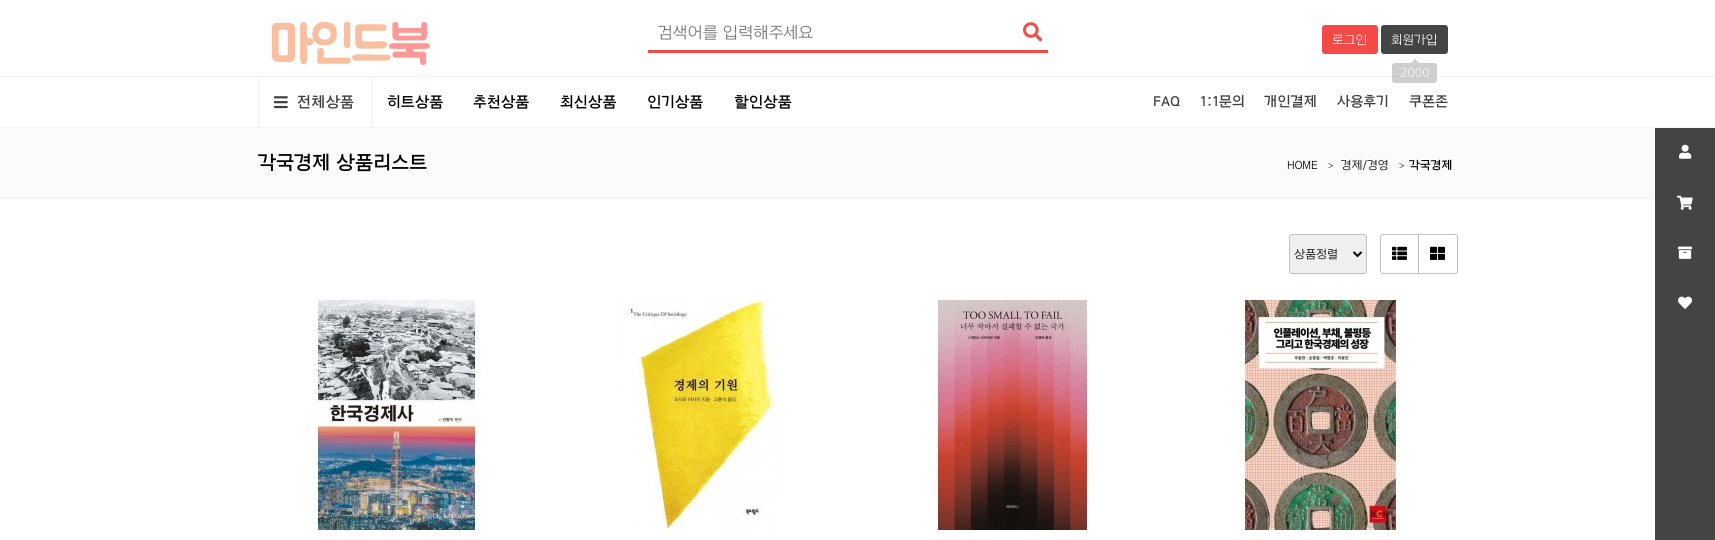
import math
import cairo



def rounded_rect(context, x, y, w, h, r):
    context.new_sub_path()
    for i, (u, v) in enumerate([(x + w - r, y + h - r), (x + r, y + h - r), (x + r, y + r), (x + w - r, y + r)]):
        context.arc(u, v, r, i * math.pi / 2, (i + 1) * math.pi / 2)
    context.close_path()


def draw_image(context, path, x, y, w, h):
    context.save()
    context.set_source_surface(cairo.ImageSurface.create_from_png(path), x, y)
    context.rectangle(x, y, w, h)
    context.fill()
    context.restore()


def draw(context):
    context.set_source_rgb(1, 1, 1)
    context.paint()
    context.set_source_rgb(242 / 255, 242 / 255, 242 / 255)
    context.rectangle(0, 127, 1715, 1)
    context.fill()
    context.rectangle(0, 76, 1715, 1)
    context.fill()
    draw_image(context, "images/1.png", 269, 20, 162, 47)
    context.set_source_rgb(245 / 255, 73 / 255, 71 / 255)
    context.rectangle(648, 50, 400, 3)
    context.fill()
    draw_image(context, "images/2.png", 1023, 22, 20, 20)
    rounded_rect(context, 1322, 25, 56, 29, 3)
    context.fill()
    context.set_source_rgb(68 / 255, 68 / 255, 68 / 255)
    rounded_rect(context, 1381, 25, 67, 29, 3)
    context.fill()
    context.set_source_rgba(193 / 255, 193 / 255, 193 / 255, 0.8)
    rounded_rect(context, 1392, 63, 45, 20, 3)
    context.fill()
    context.set_source_rgb(205 / 255, 205 / 255, 205 / 255)
    context.new_path()
    context.move_to(1419, 63)
    context.line_to(1411, 63)
    context.line_to(1415, 59)
    context.close_path()
    context.fill()
    context.set_source_rgb(242 / 255, 242 / 255, 242 / 255)
    context.rectangle(371, 77, 1, 50)
    context.fill()
    context.rectangle(258, 77, 1, 50)
    context.fill()
    draw_image(context, "images/3.png", 274, 96, 14, 13)
    context.set_source_rgb(251 / 255, 251 / 255, 251 / 255)
    context.rectangle(0, 128, 1655, 70)
    context.fill()
    context.set_source_rgb(243 / 255, 243 / 255, 243 / 255)
    context.rectangle(0, 198, 1655, 1)
    context.fill()
    draw_image(context, "images/4.png", 1328, 163, 5, 5)
    draw_image(context, "images/4.png", 1399, 163, 5, 5)
    context.set_source_rgb(239 / 255, 239 / 255, 239 / 255)
    rounded_rect(context, 1289.5, 234.5, 77, 39, 2.5)
    context.fill_preserve()
    context.set_source_rgb(193 / 255, 193 / 255, 193 / 255)
    context.set_line_width(1)
    context.stroke()
    context.new_path()
    context.move_to(1353.5, 252)
    context.line_to(1357.5, 256)
    context.line_to(1361.5, 252)
    context.set_source_rgb(0, 0, 0)
    context.set_line_width(2)
    context.stroke()
    rounded_rect(context, 1380.5, 234.5, 77, 39, 2.5)
    context.set_source_rgb(193 / 255, 193 / 255, 193 / 255)
    context.set_line_width(1)
    context.stroke()
    context.set_source_rgb(1, 1, 1)
    context.new_path()
    context.move_to(1384, 235)
    context.line_to(1419, 235)
    context.line_to(1419, 273)
    context.line_to(1384, 273)
    context.curve_to(1382.5, 273, 1381, 271.5, 1381, 270)
    context.line_to(1381, 238)
    context.curve_to(1381, 236.5, 1382.5, 235, 1384, 235)
    context.close_path()
    context.fill()
    context.set_source_rgb(193 / 255, 193 / 255, 193 / 255)
    context.rectangle(1418, 235, 1, 38)
    context.fill()
    draw_image(context, "images/5.png", 1392, 246, 15, 14)
    context.set_source_rgb(1, 1, 1)
    context.new_path()
    context.move_to(1419, 235)
    context.line_to(1454, 235)
    context.curve_to(1455.5, 235, 1457, 236.5, 1457, 238)
    context.line_to(1457, 270)
    context.curve_to(1457, 271.5, 1455.5, 273, 1454, 273)
    context.line_to(1419, 273)
    context.close_path()
    context.fill()
    draw_image(context, "images/6.png", 1430, 246, 15, 14)
    draw_image(context, "images/7.png", 313, 300, 174, 230)
    draw_image(context, "images/8.png", 621, 300, 160, 230)
    draw_image(context, "images/9.png", 936, 300, 153, 230)
    draw_image(context, "images/10.png", 1237, 300, 161, 230)
    context.set_source_rgb(68 / 255, 68 / 255, 68 / 255)
    context.rectangle(1655, 128, 60, 412)
    context.fill()
    draw_image(context, "images/11.png", 1679, 144, 13, 15)
    draw_image(context, "images/12.png", 1677, 195, 16, 15)
    draw_image(context, "images/13.png", 1678, 246, 14, 13)
    draw_image(context, "images/14.png", 1678, 296, 14, 13)
    context.select_font_face("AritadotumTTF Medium")
    context.set_font_size(16.75)
    context.set_source_rgb(117 / 255, 117 / 255, 117 / 255)
    context.move_to(658, 38)
    context.show_text("검색어를 입력해주세요")
    context.set_font_size(13)
    context.set_source_rgb(1, 1, 1)
    context.move_to(1332, 44)
    context.show_text("로그인")
    context.move_to(1391, 44)
    context.show_text("회원가입")
    context.set_source_rgb(245 / 255, 245 / 255, 245 / 255)
    context.move_to(1400, 77)
    context.show_text("2000")
    context.select_font_face("AritadotumTTF SemiBold")
    context.set_font_size(15.5)
    context.set_source_rgb(64 / 255, 64 / 255, 64 / 255)
    context.move_to(297, 107)
    context.show_text("전체상품")
    context.set_source_rgb(0, 0, 0)
    context.move_to(387, 107)
    context.show_text("히트상품")
    context.move_to(473, 107)
    context.show_text("추천상품")
    context.move_to(560, 107)
    context.show_text("최신상품")
    context.move_to(647, 107)
    context.show_text("인기상품")
    context.move_to(734, 107)
    context.show_text("할인상품")
    context.set_font_size(14.5)
    context.set_source_rgb(64 / 255, 64 / 255, 64 / 255)
    context.move_to(1153, 106)
    context.show_text("FAQ")
    context.move_to(1200, 106)
    context.show_text("1:1문의")
    context.move_to(1264, 106)
    context.show_text("개인결제")
    context.move_to(1337, 106)
    context.show_text("사용후기")
    context.move_to(1409, 106)
    context.show_text("쿠폰존")
    context.set_font_size(20)
    context.set_source_rgb(0, 0, 0)
    context.move_to(258, 169)
    context.show_text("각국경제 상품리스트")
    context.select_font_face("AritadotumTTF Medium")
    context.set_font_size(12)
    context.move_to(1287, 169)
    context.show_text("HOME")
    context.move_to(1341, 169)
    context.show_text("경제/경영")
    context.select_font_face("AritadotumTTF SemiBold")
    context.move_to(1409, 169)
    context.show_text("각국경제")
    context.select_font_face("AritadotumTTF Medium")
    context.move_to(1294, 258)
    context.show_text("상품정렬")


surface = cairo.ImageSurface(cairo.Format.RGB24, 1715, 540)
context = cairo.Context(surface)
options = cairo.FontOptions()
options.set_hint_metrics(cairo.HintMetrics.OFF)
options.set_hint_style(cairo.HintStyle.NONE)
context.set_font_options(options)
context.set_miter_limit(4)
draw(context)
surface.write_to_png("out.png")
